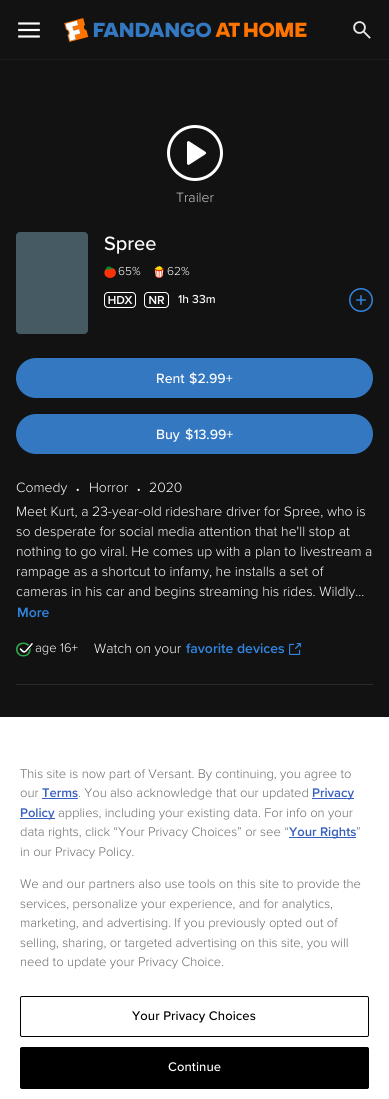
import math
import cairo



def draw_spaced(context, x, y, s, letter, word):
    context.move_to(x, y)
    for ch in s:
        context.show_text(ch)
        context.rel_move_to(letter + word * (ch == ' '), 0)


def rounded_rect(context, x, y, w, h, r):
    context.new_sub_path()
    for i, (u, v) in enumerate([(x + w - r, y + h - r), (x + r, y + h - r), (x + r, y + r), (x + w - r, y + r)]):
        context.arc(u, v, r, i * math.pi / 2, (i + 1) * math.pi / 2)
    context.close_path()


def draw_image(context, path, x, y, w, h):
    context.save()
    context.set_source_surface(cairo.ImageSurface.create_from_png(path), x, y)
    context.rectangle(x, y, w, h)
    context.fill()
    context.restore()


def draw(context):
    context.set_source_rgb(18 / 255, 18 / 255, 18 / 255)
    context.paint()
    context.set_source_rgb(30 / 255, 30 / 255, 30 / 255)
    context.rectangle(0, 59, 389, 1)
    context.fill()
    draw_image(context, "images/1.png", 18, 22, 22, 16)
    draw_image(context, "images/2.png", 64, 18, 243, 24)
    draw_image(context, "images/3.png", 353, 21, 18, 18)
    context.arc(195, 153, 26.5, 0, 2 * math.pi)
    context.set_source_rgb(1, 1, 1)
    context.set_line_width(3)
    context.stroke()
    context.set_fill_rule(cairo.FillRule.EVEN_ODD)
    context.new_path()
    context.move_to(205, 151.5)
    context.line_to(189.5, 141.5)
    context.curve_to(188.5, 140.5, 187, 141.5, 187, 142.5)
    context.line_to(187, 163.5)
    context.curve_to(187, 164.5, 188.5, 165.5, 189.5, 164.5)
    context.line_to(205, 154.5)
    context.curve_to(206.5, 153.5, 206.5, 152.5, 205, 151.5)
    context.close_path()
    context.fill()
    context.set_source_rgb(70 / 255, 90 / 255, 99 / 255)
    rounded_rect(context, 16, 232, 72, 102, 4)
    context.fill()
    draw_image(context, "images/4.png", 104, 266, 12, 12)
    draw_image(context, "images/5.png", 154, 266, 10, 12)
    draw_image(context, "images/6.png", 104, 292, 32, 16)
    draw_image(context, "images/7.png", 144, 292, 25, 16)
    draw_image(context, "images/8.png", 349, 288, 24, 24)
    context.set_source_rgb(52 / 255, 120 / 255, 193 / 255)
    rounded_rect(context, 16, 358, 357, 40, 20)
    context.fill()
    rounded_rect(context, 16, 414, 357, 40, 20)
    context.fill()
    context.set_source_rgb(42 / 255, 42 / 255, 42 / 255)
    context.rectangle(16, 684, 357, 1)
    context.fill()
    draw_image(context, "images/9.png", 16, 642, 17, 15)
    draw_image(context, "images/10.png", 289, 643, 12, 12)
    context.set_source_rgb(1, 1, 1)
    context.rectangle(0, 717, 389, 382)
    context.fill()
    context.set_source_rgb(56 / 255, 96 / 255, 190 / 255)
    context.rectangle(42, 798, 36, 1)
    context.fill()
    context.rectangle(312, 798, 42, 1)
    context.fill()
    context.rectangle(20, 818, 35, 1)
    context.fill()
    context.rectangle(289, 837, 67, 1)
    context.fill()
    rounded_rect(context, 20.5, 996.5, 348, 40, 1.5)
    context.set_source_rgb(0, 0, 0)
    context.set_line_width(1)
    context.stroke()
    rounded_rect(context, 20.5, 1047.5, 348, 41, 1.5)
    context.fill_preserve()
    context.stroke()
    context.select_font_face("Proxima Nova Light")
    context.set_font_size(14)
    context.set_source_rgb(204 / 255, 207 / 255, 209 / 255)
    context.move_to(176, 202)
    context.show_text("Trailer")
    context.select_font_face("Proxima Nova Medium")
    context.set_font_size(20)
    context.set_source_rgb(1, 1, 1)
    context.move_to(104, 250)
    context.show_text("Spree")
    context.select_font_face("Proxima Nova Light")
    context.set_font_size(12)
    context.move_to(118, 275)
    context.show_text("65%")
    context.move_to(167, 275)
    context.show_text("62%")
    context.select_font_face("Proxima Nova Medium")
    context.move_to(178, 303)
    context.show_text("1h 33m")
    context.set_font_size(14)
    context.move_to(156, 383)
    context.show_text("Rent")
    context.move_to(189, 383)
    context.show_text("$2.99+")
    context.move_to(156, 439)
    context.show_text("Buy")
    context.move_to(185, 439)
    context.show_text("$13.99+")
    context.select_font_face("Proxima Nova Light")
    context.move_to(16, 492)
    context.show_text("Comedy")
    context.set_font_size(25)
    context.move_to(75, 496)
    context.show_text("·")
    context.set_font_size(14)
    context.move_to(89, 492)
    context.show_text("Horror")
    context.set_font_size(25)
    context.move_to(136, 496)
    context.show_text("·")
    context.set_font_size(14)
    context.move_to(149, 492)
    context.show_text("2020")
    context.move_to(16, 516)
    context.show_text("Meet Kurt, a 23-year-old rideshare driver for Spree, who is")
    context.move_to(16, 536)
    context.show_text("so desperate for social media attention that he'll stop at")
    context.move_to(16, 556)
    context.show_text("nothing to go viral. He comes up with a plan to livestream a")
    context.move_to(16, 576)
    context.show_text("rampage as a shortcut to infamy, he installs a set of")
    context.move_to(16, 596)
    context.show_text("cameras in his car and begins streaming his rides. Wildly...")
    context.select_font_face("Proxima Nova SemiBold")
    context.set_source_rgb(49 / 255, 133 / 255, 224 / 255)
    context.move_to(17, 617)
    context.show_text("More")
    context.select_font_face("Proxima Nova Light")
    context.set_font_size(13)
    context.set_source_rgb(1, 1, 1)
    context.move_to(35, 652)
    context.show_text("age 16+")
    context.set_font_size(14)
    context.move_to(94, 653)
    context.show_text("Watch on your")
    context.select_font_face("Proxima Nova SemiBold")
    context.set_source_rgb(49 / 255, 133 / 255, 224 / 255)
    context.move_to(186, 653)
    context.show_text("favorite devices")
    context.select_font_face("Proxima Nova Light")
    context.set_font_size(13)
    context.set_source_rgb(105 / 255, 105 / 255, 105 / 255)
    context.move_to(20, 778)
    context.show_text("This site is now part of Versant. By continuing, you agree to")
    context.move_to(20, 797)
    context.show_text("our")
    context.select_font_face("Proxima Nova SemiBold")
    context.set_source_rgb(56 / 255, 96 / 255, 190 / 255)
    context.move_to(42, 797)
    context.show_text("Terms")
    context.select_font_face("Proxima Nova Light")
    context.set_source_rgb(105 / 255, 105 / 255, 105 / 255)
    context.move_to(78, 797)
    context.show_text(". You also acknowledge that our updated")
    context.select_font_face("Proxima Nova SemiBold")
    context.set_source_rgb(56 / 255, 96 / 255, 190 / 255)
    context.move_to(312, 797)
    context.show_text("Privacy")
    context.move_to(20, 817)
    context.show_text("Policy")
    context.select_font_face("Proxima Nova Light")
    context.set_source_rgb(105 / 255, 105 / 255, 105 / 255)
    context.move_to(58, 817)
    context.show_text("applies, including your existing data. For info on your")
    context.move_to(20, 836)
    context.show_text("data rights, click “Your Privacy Choices” or see “")
    context.select_font_face("Proxima Nova SemiBold")
    context.set_source_rgb(56 / 255, 96 / 255, 190 / 255)
    context.move_to(289, 836)
    context.show_text("Your Rights")
    context.select_font_face("Proxima Nova Light")
    context.set_source_rgb(105 / 255, 105 / 255, 105 / 255)
    context.move_to(356, 836)
    context.show_text("”")
    context.move_to(20, 856)
    context.show_text("in our Privacy Policy.")
    context.move_to(20, 888)
    context.show_text("We and our partners also use tools on this site to provide the")
    context.move_to(20, 908)
    context.show_text("services, personalize your experience, and for analytics,")
    context.move_to(20, 927)
    context.show_text("marketing, and advertising. If you previously opted out of")
    context.move_to(20, 947)
    context.show_text("selling, sharing, or targeted advertising on this site, you will")
    context.move_to(20, 966)
    context.show_text("need to update your Privacy Choice.")
    context.select_font_face("Proxima Nova Medium")
    context.set_source_rgb(0, 0, 0)
    draw_spaced(context, 132, 1020, "Your Privacy Choices", 0.1, 0)
    context.set_source_rgb(1, 1, 1)
    draw_spaced(context, 168, 1071, "Continue", 0.1, 0)


surface = cairo.ImageSurface(cairo.Format.RGB24, 389, 1099)
context = cairo.Context(surface)
options = cairo.FontOptions()
options.set_hint_metrics(cairo.HintMetrics.OFF)
options.set_hint_style(cairo.HintStyle.NONE)
context.set_font_options(options)
context.set_miter_limit(4)
draw(context)
surface.write_to_png("out.png")
